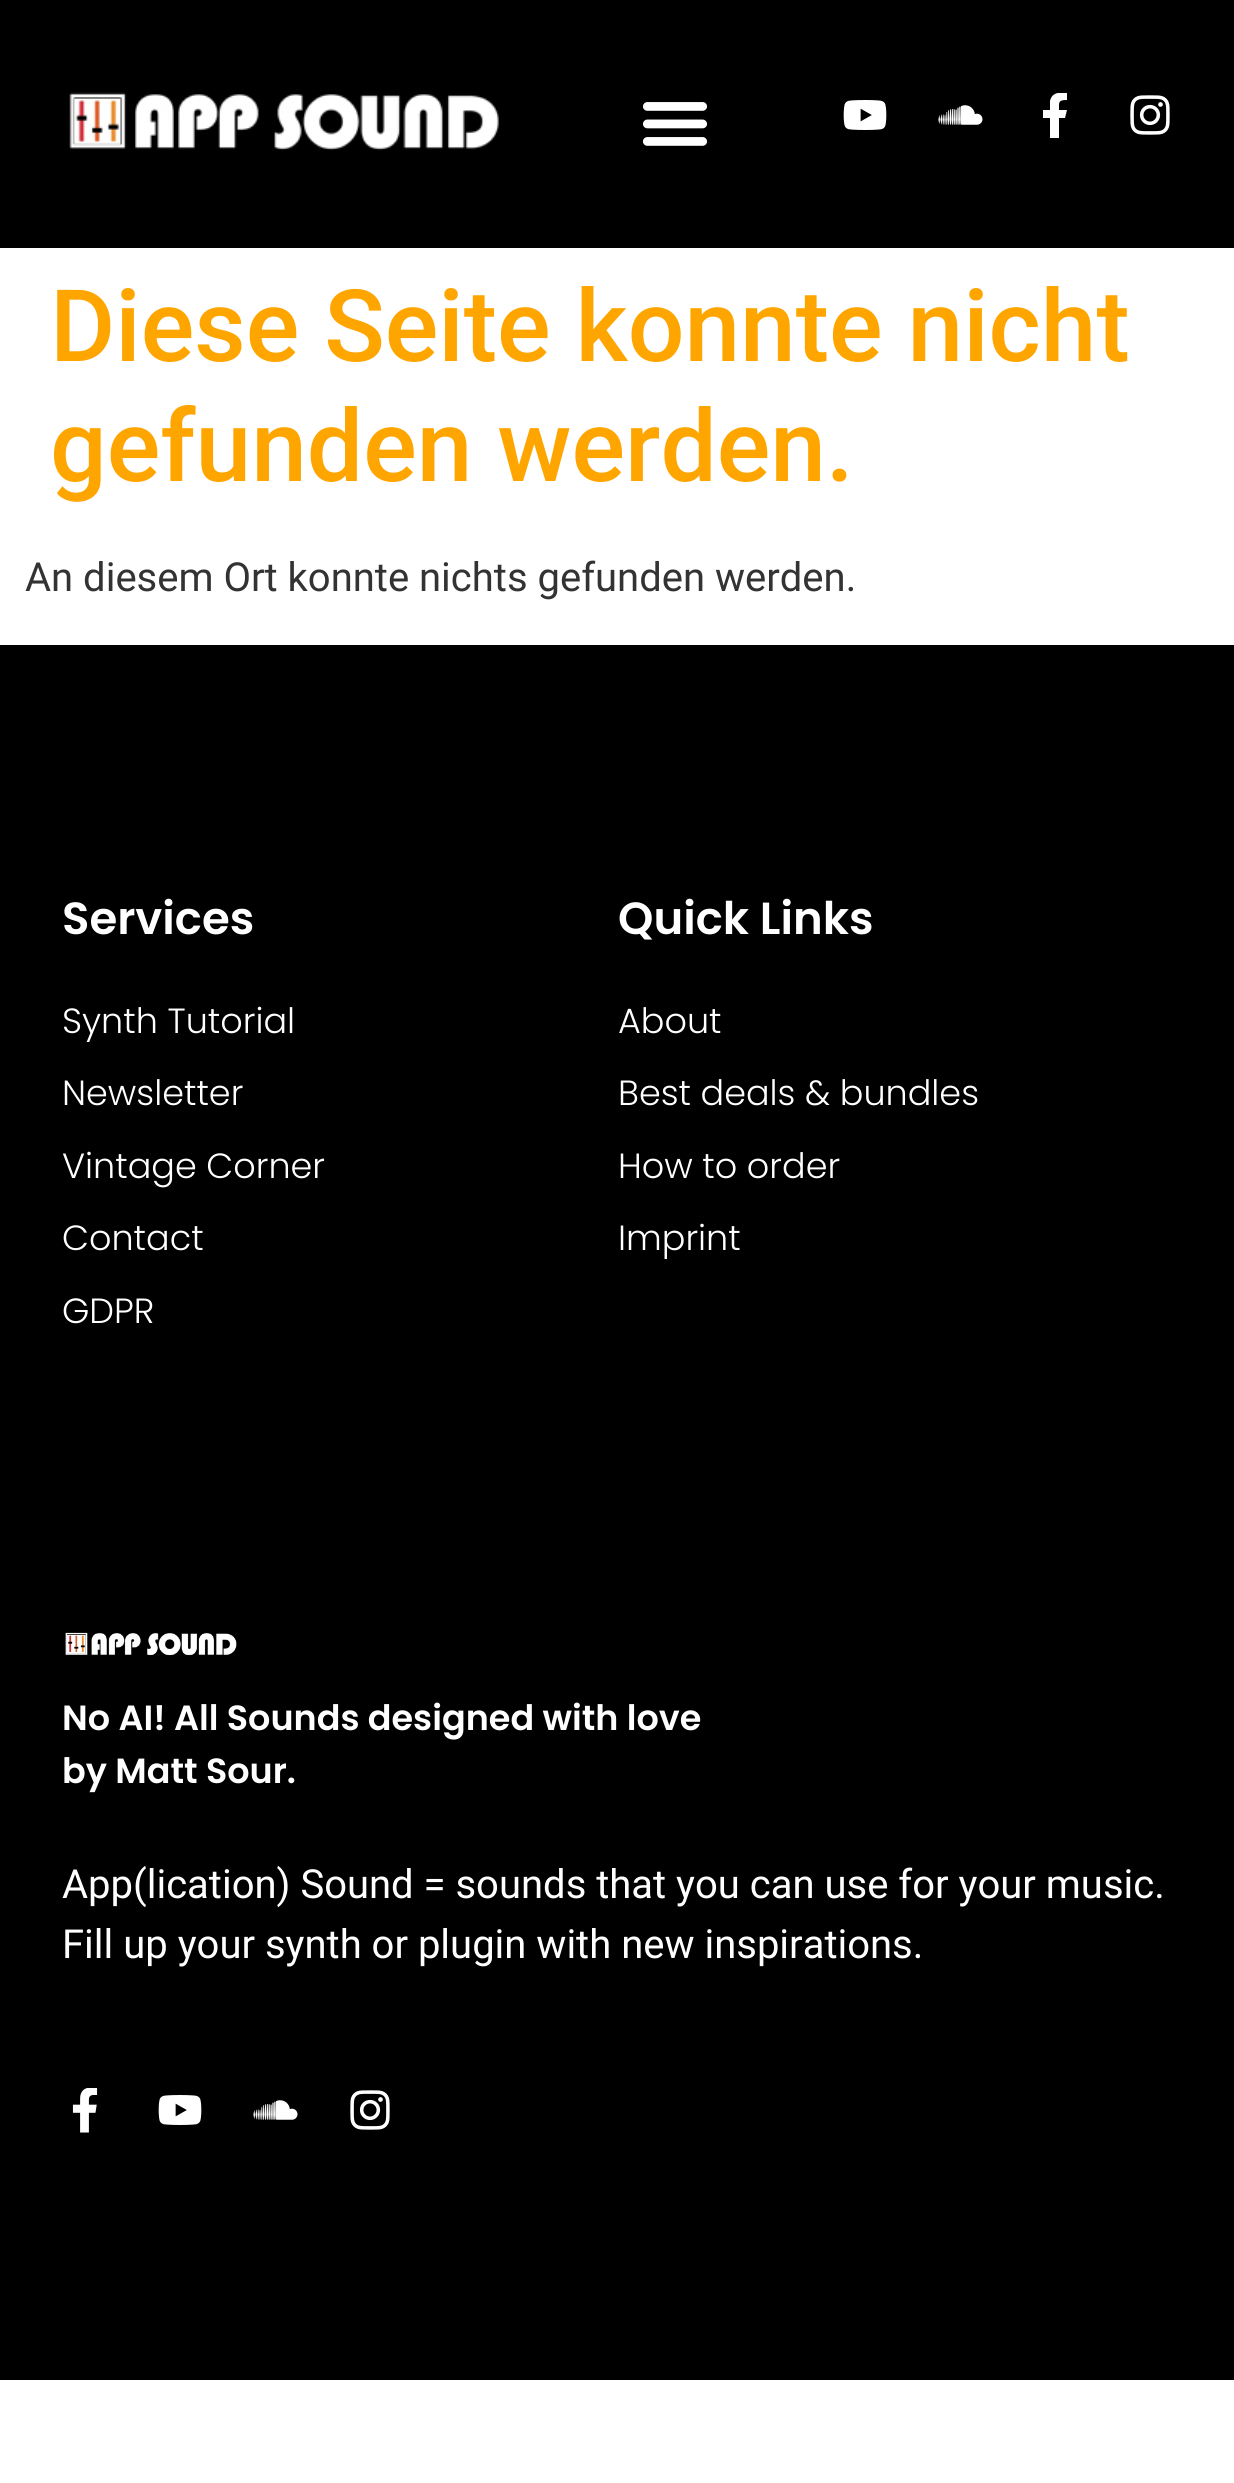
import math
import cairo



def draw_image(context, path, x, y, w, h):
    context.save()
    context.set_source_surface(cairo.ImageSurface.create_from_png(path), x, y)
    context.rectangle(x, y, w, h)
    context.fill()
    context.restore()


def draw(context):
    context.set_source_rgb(1, 1, 1)
    context.paint()
    context.set_source_rgb(0, 0, 0)
    context.rectangle(0, 0, 1234, 248)
    context.fill()
    draw_image(context, "images/1.png", 69, 92, 430, 59)
    draw_image(context, "images/2.png", 642, 102, 66, 44)
    draw_image(context, "images/3.png", 843, 100, 44, 30)
    draw_image(context, "images/4.png", 938, 105, 45, 20)
    context.save()
    context.rectangle(1033, 93, 45, 45)
    context.clip()
    context.set_source_rgb(1, 1, 1)
    context.new_path()
    context.move_to(1065, 118)
    context.line_to(1067, 110)
    context.line_to(1059, 110)
    context.curve_to(1059, 102, 1058, 100, 1067, 100)
    context.line_to(1067, 93)
    context.curve_to(1060, 92, 1052, 92, 1050, 101)
    context.line_to(1050, 110)
    context.line_to(1043, 110)
    context.line_to(1043, 118)
    context.line_to(1050, 118)
    context.line_to(1050, 138)
    context.line_to(1059, 138)
    context.line_to(1059, 118)
    context.close_path()
    context.fill()
    context.restore()
    draw_image(context, "images/5.png", 1130, 95, 40, 40)
    context.rectangle(0, 645, 1234, 1735)
    context.fill()
    draw_image(context, "images/6.png", 65, 1632, 172, 24)
    draw_image(context, "images/7.png", 72, 2088, 26, 45)
    draw_image(context, "images/3.png", 158, 2095, 44, 30)
    draw_image(context, "images/4.png", 253, 2100, 45, 20)
    draw_image(context, "images/5.png", 350, 2090, 40, 40)
    context.select_font_face("Roboto Medium")
    context.set_font_size(100)
    context.set_source_rgb(1, 165 / 255, 0)
    context.move_to(50, 361)
    context.show_text("Diese Seite konnte nicht")
    context.move_to(50, 481)
    context.show_text("gefunden werden.")
    context.select_font_face("Roboto")
    context.set_font_size(40)
    context.set_source_rgb(51 / 255, 51 / 255, 51 / 255)
    context.move_to(25, 591)
    context.show_text("An diesem Ort konnte nichts gefunden werden.")
    context.select_font_face("Poppins SemiBold")
    context.set_font_size(45)
    context.set_source_rgb(1, 1, 1)
    context.move_to(62, 934)
    context.show_text("Services")
    context.select_font_face("Poppins Light")
    context.set_font_size(35)
    context.move_to(62, 1033)
    context.show_text("Synth Tutorial")
    context.move_to(62, 1105)
    context.show_text("Newsletter")
    context.move_to(62, 1178)
    context.show_text("Vintage Corner")
    context.move_to(62, 1250)
    context.show_text("Contact")
    context.move_to(62, 1323)
    context.show_text("GDPR")
    context.select_font_face("Poppins SemiBold")
    context.set_font_size(45)
    context.move_to(618, 934)
    context.show_text("Quick Links")
    context.select_font_face("Poppins Light")
    context.set_font_size(35)
    context.move_to(618, 1033)
    context.show_text("About")
    context.move_to(618, 1105)
    context.show_text("Best deals & bundles")
    context.move_to(618, 1178)
    context.show_text("How to order")
    context.move_to(618, 1250)
    context.show_text("Imprint")
    context.select_font_face("Poppins SemiBold")
    context.move_to(62, 1730)
    context.show_text("No AI! All Sounds designed with love")
    context.move_to(62, 1783)
    context.show_text("by Matt Sour.")
    context.select_font_face("Roboto")
    context.set_font_size(40)
    context.move_to(62, 1898)
    context.show_text("App(lication) Sound = sounds that you can use for your music.")
    context.move_to(62, 1958)
    context.show_text("Fill up your synth or plugin with new inspirations.")


surface = cairo.ImageSurface(cairo.Format.RGB24, 1234, 2483)
context = cairo.Context(surface)
options = cairo.FontOptions()
options.set_hint_metrics(cairo.HintMetrics.OFF)
options.set_hint_style(cairo.HintStyle.NONE)
context.set_font_options(options)
context.set_miter_limit(4)
draw(context)
surface.write_to_png("out.png")
